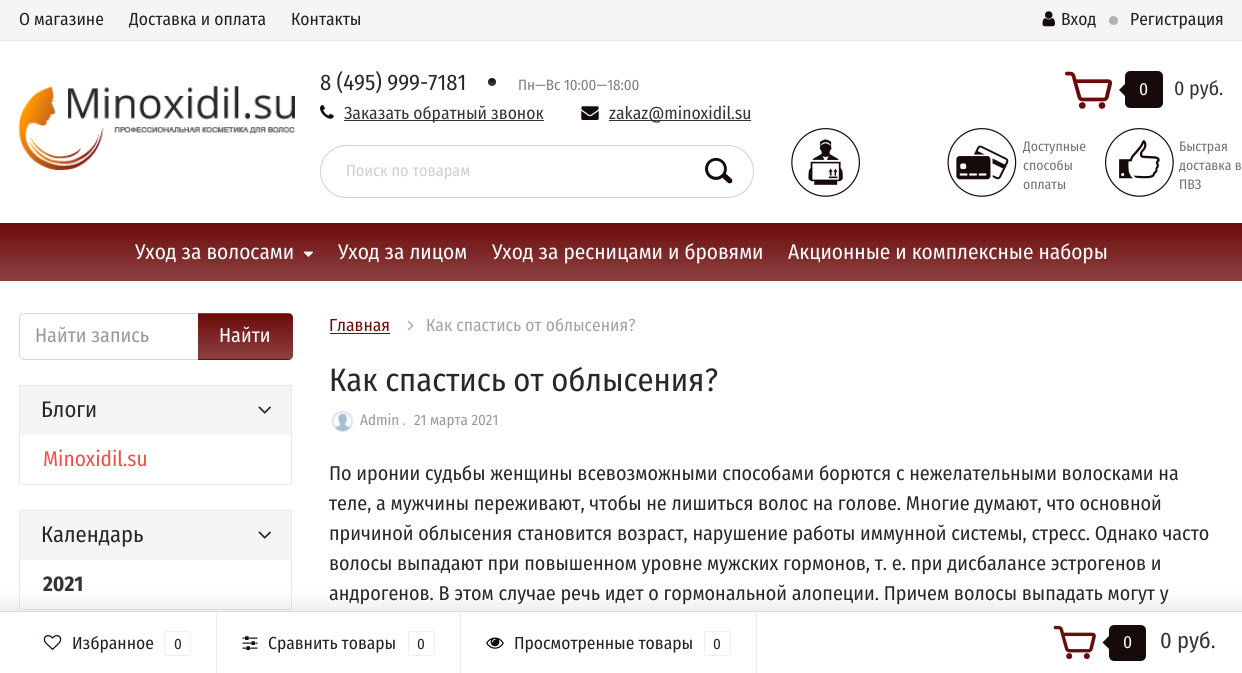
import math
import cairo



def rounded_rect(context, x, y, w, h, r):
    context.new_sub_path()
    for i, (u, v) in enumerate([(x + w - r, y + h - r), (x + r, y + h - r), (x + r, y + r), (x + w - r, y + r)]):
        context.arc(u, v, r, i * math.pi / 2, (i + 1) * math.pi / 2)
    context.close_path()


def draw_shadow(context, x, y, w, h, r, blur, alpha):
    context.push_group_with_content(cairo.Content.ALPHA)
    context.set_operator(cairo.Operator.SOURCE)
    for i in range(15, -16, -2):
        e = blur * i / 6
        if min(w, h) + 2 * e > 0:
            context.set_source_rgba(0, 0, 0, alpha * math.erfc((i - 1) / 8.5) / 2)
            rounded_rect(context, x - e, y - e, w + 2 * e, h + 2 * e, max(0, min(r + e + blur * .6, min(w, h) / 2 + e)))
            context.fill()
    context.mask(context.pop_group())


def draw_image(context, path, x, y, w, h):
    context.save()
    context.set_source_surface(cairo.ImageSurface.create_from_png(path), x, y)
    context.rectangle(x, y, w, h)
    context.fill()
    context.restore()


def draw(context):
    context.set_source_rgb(1, 1, 1)
    context.paint()
    context.set_source_rgb(245 / 255, 245 / 255, 245 / 255)
    context.rectangle(0, 0, 1242, 40)
    context.fill()
    context.set_source_rgb(234 / 255, 234 / 255, 234 / 255)
    context.rectangle(0, 40, 1242, 1)
    context.fill()
    draw_image(context, "images/1.png", 1042, 11, 13, 16)
    context.set_source_rgb(172 / 255, 179 / 255, 180 / 255)
    context.arc(1113.5, 20.5, 4.5, 0, 2 * math.pi)
    context.fill()
    draw_image(context, "images/2.png", 18, 86, 277, 84)
    context.set_source_rgb(22 / 255, 10 / 255, 10 / 255)
    context.arc(492, 82, 4, 0, 2 * math.pi)
    context.fill()
    gradient = cairo.LinearGradient(492, 78, 492, 86)
    gradient.add_color_stop_rgba(0, 1, 1, 1, 0)
    gradient.add_color_stop_rgba(1, 1, 1, 1, 0.22)
    context.set_source(gradient)
    context.arc(492, 82, 4, 0, 2 * math.pi)
    context.fill()
    draw_image(context, "images/3.png", 320, 105, 14, 14)
    context.set_source_rgb(52 / 255, 52 / 255, 52 / 255)
    context.rectangle(344, 120, 200, 1)
    context.fill()
    draw_image(context, "images/4.png", 581, 106, 18, 14)
    context.rectangle(609, 120, 142, 1)
    context.fill()
    draw_image(context, "images/5.png", 1065, 71, 48, 38)
    context.set_source_rgb(22 / 255, 10 / 255, 10 / 255)
    rounded_rect(context, 1127.5, 73.5, 33, 32, 2.5)
    context.fill_preserve()
    context.set_line_width(5)
    context.stroke()
    context.new_path()
    context.move_to(1130, 79)
    context.line_to(1130, 101)
    context.line_to(1119, 90)
    context.close_path()
    context.fill()
    rounded_rect(context, 320.5, 145.5, 433, 52, 26)
    context.set_source_rgb(208 / 255, 207 / 255, 207 / 255)
    context.set_line_width(1)
    context.stroke()
    draw_image(context, "images/6.png", 705, 157, 28, 27)
    draw_image(context, "images/7.png", 791, 128, 69, 69)
    draw_image(context, "images/8.png", 947, 128, 70, 69)
    draw_image(context, "images/9.png", 1105, 128, 69, 69)
    gradient = cairo.LinearGradient(621, 222, 621, 281)
    gradient.add_color_stop_rgba(0, 108 / 255, 11 / 255, 11 / 255, 1)
    gradient.add_color_stop_rgba(1, 140 / 255, 65 / 255, 65 / 255, 1)
    context.set_source(gradient)
    context.rectangle(0, 223, 1242, 58)
    context.fill()
    draw_image(context, "images/10.png", 303, 251, 10, 6)
    context.new_path()
    context.move_to(24, 313.5)
    context.line_to(198.5, 313.5)
    context.line_to(198.5, 359.5)
    context.line_to(24, 359.5)
    context.curve_to(21.5, 359.5, 19.5, 357.5, 19.5, 355)
    context.line_to(19.5, 318)
    context.curve_to(19.5, 315.5, 21.5, 313.5, 24, 313.5)
    context.close_path()
    context.set_source_rgb(217 / 255, 217 / 255, 217 / 255)
    context.stroke()
    context.set_source_rgb(108 / 255, 11 / 255, 11 / 255)
    context.new_path()
    context.move_to(198, 313)
    context.line_to(288, 313)
    context.curve_to(291, 313, 293, 315, 293, 318)
    context.line_to(293, 355)
    context.curve_to(293, 358, 291, 360, 288, 360)
    context.line_to(198, 360)
    context.close_path()
    context.fill()
    context.save()
    context.new_path()
    context.move_to(198, 313)
    context.line_to(288, 313)
    context.curve_to(291, 313, 293, 315, 293, 318)
    context.line_to(293, 355)
    context.curve_to(293, 358, 291, 360, 288, 360)
    context.line_to(198, 360)
    context.close_path()
    context.clip()
    gradient = cairo.LinearGradient(245, 269, 245, 314)
    gradient.add_color_stop_rgba(0, 1, 1, 1, 0)
    gradient.add_color_stop_rgba(1, 1, 1, 1, 0.22)
    context.set_source(gradient)
    context.rectangle(198, 313, 95, 1)
    context.fill()
    gradient = cairo.LinearGradient(245, 314, 245, 359)
    gradient.add_color_stop_rgba(0, 1, 1, 1, 0)
    gradient.add_color_stop_rgba(1, 1, 1, 1, 0.22)
    context.set_source(gradient)
    context.rectangle(198, 318, 95, 41)
    context.fill()
    context.restore()
    context.set_source_rgb(233 / 255, 233 / 255, 233 / 255)
    context.rectangle(19, 385, 274, 1)
    context.fill()
    context.rectangle(291, 385, 1, 100)
    context.fill()
    context.rectangle(19, 385, 1, 100)
    context.fill()
    context.set_source_rgb(245 / 255, 245 / 255, 245 / 255)
    context.rectangle(20, 386, 271, 49)
    context.fill()
    draw_image(context, "images/11.png", 258, 406, 13, 8)
    context.set_source_rgb(233 / 255, 233 / 255, 233 / 255)
    context.new_path()
    context.move_to(291, 485)
    context.line_to(20, 485)
    context.line_to(24, 484)
    context.line_to(291, 484)
    context.close_path()
    context.fill()
    context.rectangle(19, 510, 274, 1)
    context.fill()
    context.rectangle(291, 510, 1, 100)
    context.fill()
    context.rectangle(19, 510, 1, 100)
    context.fill()
    context.set_source_rgb(245 / 255, 245 / 255, 245 / 255)
    context.rectangle(20, 511, 271, 49)
    context.fill()
    draw_image(context, "images/11.png", 258, 531, 13, 8)
    context.set_source_rgb(233 / 255, 233 / 255, 233 / 255)
    context.new_path()
    context.move_to(291, 610)
    context.line_to(20, 610)
    context.line_to(24, 609)
    context.line_to(291, 609)
    context.close_path()
    context.fill()
    context.set_source_rgb(108 / 255, 11 / 255, 11 / 255)
    context.rectangle(330, 333, 60, 1)
    context.fill()
    draw_image(context, "images/12.png", 407, 320, 7, 11)
    draw_image(context, "images/13.png", 331, 409, 23, 23)
    context.set_source_rgb(50 / 255, 50 / 255, 50 / 255)
    draw_shadow(context, -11, 609, 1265, 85, 0, 12.5, 0.15)
    context.set_source_rgb(1, 1, 1)
    context.rectangle(0, 612, 1242, 61)
    context.fill()
    context.set_source_rgb(219 / 255, 219 / 255, 219 / 255)
    context.rectangle(0, 611, 1242, 1)
    context.fill()
    context.set_source_rgb(237 / 255, 237 / 255, 237 / 255)
    context.rectangle(216, 613, 1, 60)
    context.fill()
    draw_image(context, "images/14.png", 43, 635, 19, 15)
    rounded_rect(context, 164.5, 631.5, 26, 24, 2)
    context.set_source_rgb(238 / 255, 238 / 255, 238 / 255)
    context.stroke()
    context.set_source_rgb(237 / 255, 237 / 255, 237 / 255)
    context.rectangle(460, 613, 1, 60)
    context.fill()
    draw_image(context, "images/15.png", 242, 636, 16, 14)
    rounded_rect(context, 408.5, 631.5, 26, 24, 2)
    context.set_source_rgb(238 / 255, 238 / 255, 238 / 255)
    context.stroke()
    context.set_source_rgb(237 / 255, 237 / 255, 237 / 255)
    context.rectangle(756, 613, 1, 60)
    context.fill()
    draw_image(context, "images/16.png", 486, 637, 18, 12)
    rounded_rect(context, 704.5, 631.5, 26, 24, 2)
    context.set_source_rgb(238 / 255, 238 / 255, 238 / 255)
    context.stroke()
    draw_image(context, "images/17.png", 1053, 625, 43, 35)
    context.set_source_rgb(22 / 255, 10 / 255, 10 / 255)
    rounded_rect(context, 1111.5, 627.5, 32, 31, 2.5)
    context.fill_preserve()
    context.set_line_width(5)
    context.stroke()
    context.new_path()
    context.move_to(1114, 631)
    context.line_to(1114, 654)
    context.line_to(1102.5, 642.5)
    context.close_path()
    context.fill()
    context.select_font_face("Fira Sans Condensed")
    context.set_font_size(17.5)
    context.set_source_rgb(34 / 255, 34 / 255, 34 / 255)
    context.move_to(19, 25)
    context.show_text("О магазине")
    context.move_to(129, 25)
    context.show_text("Доставка и оплата")
    context.move_to(291, 25)
    context.show_text("Контакты")
    context.move_to(1061, 25)
    context.show_text("Вход")
    context.move_to(1130, 25)
    context.show_text("Регистрация")
    context.set_font_size(22.5)
    context.set_source_rgb(40 / 255, 40 / 255, 40 / 255)
    context.move_to(320, 90)
    context.show_text("8 (495) 999-7181")
    context.set_font_size(15)
    context.set_source_rgb(127 / 255, 127 / 255, 127 / 255)
    context.move_to(518, 90)
    context.show_text("Пн—Вс 10:00—18:00")
    context.set_font_size(17.5)
    context.set_source_rgb(52 / 255, 52 / 255, 52 / 255)
    context.move_to(344, 119)
    context.show_text("Заказать обратный звонок")
    context.move_to(609, 119)
    context.show_text("zakaz@minoxidil.su")
    context.set_source_rgb(1, 1, 1)
    context.move_to(1139, 95)
    context.show_text("0")
    context.set_font_size(20)
    context.set_source_rgb(52 / 255, 52 / 255, 52 / 255)
    context.move_to(1174, 95)
    context.show_text("0 руб.")
    context.set_font_size(16.25)
    context.set_source_rgb(207 / 255, 207 / 255, 207 / 255)
    context.move_to(346, 176)
    context.show_text("Поиск по товарам")
    context.set_font_size(13.75)
    context.set_source_rgb(113 / 255, 113 / 255, 113 / 255)
    context.move_to(1023, 151)
    context.show_text("Доступные")
    context.move_to(1023, 170)
    context.show_text("способы")
    context.move_to(1023, 189)
    context.show_text("оплаты")
    context.move_to(1179, 151)
    context.show_text("Быстрая")
    context.move_to(1179, 170)
    context.show_text("доставка в")
    context.move_to(1179, 189)
    context.show_text("ПВЗ")
    context.set_font_size(21.25)
    context.set_source_rgb(1, 1, 1)
    context.move_to(135, 259)
    context.show_text("Уход за волосами")
    context.move_to(338, 259)
    context.show_text("Уход за лицом")
    context.move_to(492, 259)
    context.show_text("Уход за ресницами и бровями")
    context.move_to(788, 259)
    context.show_text("Акционные и комплексные наборы")
    context.set_font_size(20)
    context.set_source_rgb(153 / 255, 153 / 255, 153 / 255)
    context.move_to(35, 342)
    context.show_text("Найти запись")
    context.set_source_rgb(1, 1, 1)
    context.move_to(219, 342)
    context.show_text("Найти")
    context.set_font_size(22.5)
    context.set_source_rgb(40 / 255, 40 / 255, 40 / 255)
    context.move_to(41, 417)
    context.show_text("Блоги")
    context.set_font_size(21.25)
    context.set_source_rgb(248 / 255, 76 / 255, 72 / 255)
    context.move_to(43, 466)
    context.show_text("Minoxidil.su")
    context.set_font_size(22.5)
    context.set_source_rgb(40 / 255, 40 / 255, 40 / 255)
    context.move_to(41, 542)
    context.show_text("Календарь")
    context.select_font_face("Fira Sans Condensed", cairo.FontSlant.NORMAL, cairo.FontWeight.BOLD)
    context.set_font_size(21.25)
    context.set_source_rgb(52 / 255, 52 / 255, 52 / 255)
    context.move_to(43, 591)
    context.show_text("2021")
    context.select_font_face("Fira Sans Condensed")
    context.set_font_size(17.5)
    context.set_source_rgb(108 / 255, 11 / 255, 11 / 255)
    context.move_to(329, 331)
    context.show_text("Главная")
    context.set_source_rgb(163 / 255, 163 / 255, 163 / 255)
    context.move_to(426, 331)
    context.show_text("Как спастись от облысения?")
    context.set_font_size(32.5)
    context.set_source_rgb(40 / 255, 40 / 255, 40 / 255)
    context.move_to(329, 391)
    context.show_text("Как спастись от облысения?")
    context.set_font_size(15)
    context.set_source_rgb(153 / 255, 153 / 255, 153 / 255)
    context.move_to(360, 425)
    context.show_text("Admin .")
    context.move_to(414, 425)
    context.show_text("21 марта 2021")
    context.set_font_size(20)
    context.set_source_rgb(40 / 255, 40 / 255, 40 / 255)
    context.move_to(329, 480)
    context.show_text("По иронии судьбы женщины всевозможными способами борются с нежелательными волосками на")
    context.move_to(329, 510)
    context.show_text("теле, а мужчины переживают, чтобы не лишиться волос на голове. Многие думают, что основной")
    context.move_to(329, 540)
    context.show_text("причиной облысения становится возраст, нарушение работы иммунной системы, стресс. Однако часто")
    context.move_to(329, 570)
    context.show_text("волосы выпадают при повышенном уровне мужских гормонов, т. е. при дисбалансе эстрогенов и")
    context.move_to(329, 600)
    context.show_text("андрогенов. В этом случае речь идет о гормональной алопеции. Причем волосы выпадать могут у")
    context.set_font_size(17.5)
    context.set_source_rgb(34 / 255, 34 / 255, 34 / 255)
    context.move_to(72, 649)
    context.show_text("Избранное")
    context.set_font_size(15)
    context.move_to(174, 649)
    context.show_text("0")
    context.set_font_size(17.5)
    context.move_to(268, 649)
    context.show_text("Сравнить товары")
    context.set_font_size(15)
    context.move_to(417, 649)
    context.show_text("0")
    context.set_font_size(17.5)
    context.move_to(514, 649)
    context.show_text("Просмотренные товары")
    context.set_font_size(15)
    context.move_to(713, 649)
    context.show_text("0")
    context.set_font_size(17.5)
    context.set_source_rgb(1, 1, 1)
    context.move_to(1123, 648)
    context.show_text("0")
    context.set_font_size(22.5)
    context.set_source_rgb(52 / 255, 52 / 255, 52 / 255)
    context.move_to(1160, 648)
    context.show_text("0 руб.")


surface = cairo.ImageSurface(cairo.Format.RGB24, 1242, 673)
context = cairo.Context(surface)
options = cairo.FontOptions()
options.set_hint_metrics(cairo.HintMetrics.OFF)
options.set_hint_style(cairo.HintStyle.NONE)
context.set_font_options(options)
context.set_miter_limit(4)
draw(context)
surface.write_to_png("out.png")
